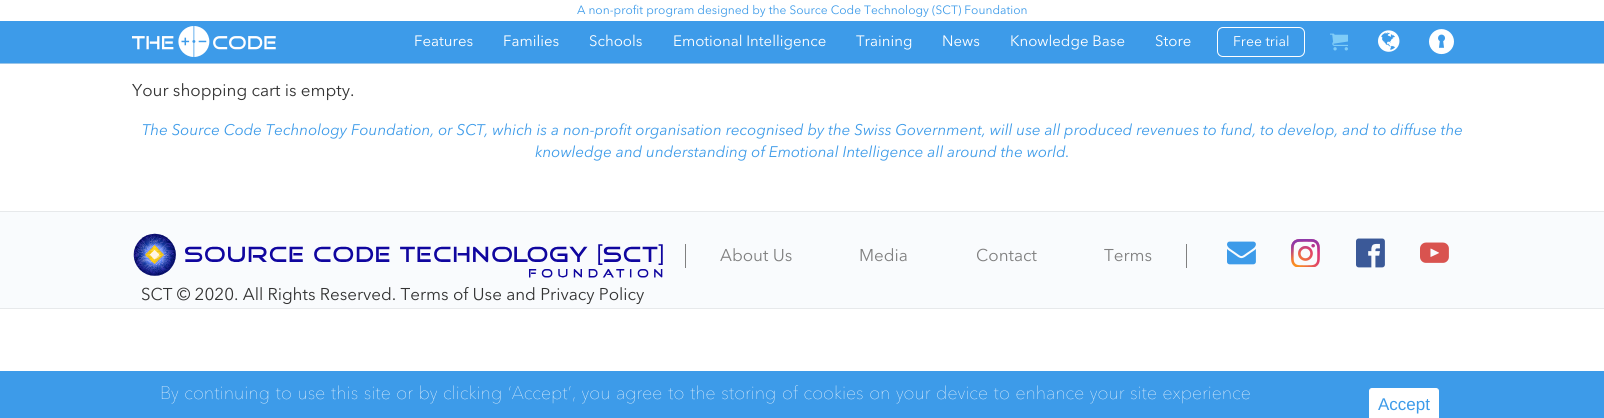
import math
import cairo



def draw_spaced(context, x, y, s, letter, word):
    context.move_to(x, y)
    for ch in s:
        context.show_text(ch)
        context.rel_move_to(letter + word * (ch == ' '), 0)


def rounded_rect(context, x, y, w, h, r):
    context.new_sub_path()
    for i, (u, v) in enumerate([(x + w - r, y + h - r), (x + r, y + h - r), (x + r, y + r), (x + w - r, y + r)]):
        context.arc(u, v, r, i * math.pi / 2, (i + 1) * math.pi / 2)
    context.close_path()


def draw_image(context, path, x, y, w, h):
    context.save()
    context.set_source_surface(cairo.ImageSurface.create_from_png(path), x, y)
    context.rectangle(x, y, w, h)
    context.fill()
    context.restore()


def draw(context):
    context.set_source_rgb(1, 1, 1)
    context.paint()
    context.set_source_rgb(61 / 255, 155 / 255, 233 / 255)
    context.rectangle(0, 21, 1604, 42)
    context.fill()
    context.set_source_rgb(154 / 255, 197 / 255, 232 / 255)
    context.rectangle(0, 63, 1604, 1)
    context.fill()
    draw_image(context, "images/1.png", 132, 26, 144, 31)
    rounded_rect(context, 1217.5, 27.5, 87, 29, 5.5)
    context.set_source_rgb(1, 1, 1)
    context.set_line_width(1)
    context.stroke()
    draw_image(context, "images/2.png", 1330, 33, 18, 18)
    draw_image(context, "images/3.png", 1378, 30, 22, 22)
    draw_image(context, "images/4.png", 1429, 29, 25, 26)
    context.set_source_rgb(249 / 255, 251 / 255, 253 / 255)
    context.rectangle(0, 212, 1604, 96)
    context.fill()
    context.set_source_rgb(231 / 255, 233 / 255, 235 / 255)
    context.rectangle(0, 211, 1604, 1)
    context.fill()
    context.rectangle(0, 308, 1604, 1)
    context.fill()
    draw_image(context, "images/5.png", 133, 233, 530, 45)
    context.set_source_rgb(128 / 255, 128 / 255, 128 / 255)
    context.rectangle(1186, 244, 1, 24)
    context.fill()
    context.rectangle(685, 244, 1, 24)
    context.fill()
    draw_image(context, "images/6.png", 1227, 241, 29, 24)
    draw_image(context, "images/7.png", 1291, 239, 29, 28)
    draw_image(context, "images/8.png", 1356, 238, 29, 30)
    draw_image(context, "images/9.png", 1420, 242, 29, 21)
    context.set_source_rgb(61 / 255, 155 / 255, 233 / 255)
    context.rectangle(0, 371, 1604, 47)
    context.fill()
    context.set_source_rgb(1, 1, 1)
    rounded_rect(context, 1369.5, 388.5, 69, 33, 2.5)
    context.fill_preserve()
    context.stroke()
    context.select_font_face("Avenir Next")
    context.set_font_size(12)
    context.set_source_rgb(61 / 255, 155 / 255, 233 / 255)
    context.move_to(577, 14)
    context.show_text("A non-profit program designed by the Source Code Technology (SCT) Foundation")
    context.set_font_size(15)
    context.set_source_rgb(1, 1, 1)
    context.move_to(414, 46)
    context.show_text("Features")
    context.move_to(503, 46)
    context.show_text("Families")
    context.move_to(589, 46)
    context.show_text("Schools")
    context.move_to(673, 46)
    context.show_text("Emotional Intelligence")
    context.move_to(856, 46)
    context.show_text("Training")
    context.move_to(942, 46)
    context.show_text("News")
    context.move_to(1010, 46)
    context.show_text("Knowledge Base")
    context.move_to(1155, 46)
    context.show_text("Store")
    context.set_font_size(14)
    context.move_to(1233, 46)
    context.show_text("Free trial")
    context.set_font_size(17)
    context.set_source_rgb(51 / 255, 51 / 255, 51 / 255)
    context.move_to(132, 96)
    context.show_text("Your shopping cart is empty.")
    context.select_font_face("Avenir Next", cairo.FontSlant.ITALIC)
    context.set_font_size(15.3)
    context.set_source_rgb(61 / 255, 155 / 255, 233 / 255)
    context.move_to(142, 135)
    context.show_text("The Source Code Technology Foundation, or SCT, which is a non-profit organisation recognised by the Swiss Government, will use all produced revenues to fund, to develop, and to diffuse the")
    context.move_to(535, 157)
    context.show_text("knowledge and understanding of Emotional Intelligence all around the world.")
    context.select_font_face("Avenir Next")
    context.set_font_size(17)
    context.set_source_rgb(128 / 255, 128 / 255, 128 / 255)
    context.move_to(720, 261)
    context.show_text("About Us")
    context.move_to(859, 261)
    context.show_text("Media")
    context.move_to(976, 261)
    context.show_text("Contact")
    context.move_to(1104, 261)
    context.show_text("Terms")
    context.set_source_rgb(51 / 255, 51 / 255, 51 / 255)
    context.move_to(141, 300)
    context.show_text("SCT © 2020. All Rights Reserved. Terms of Use and Privacy Policy")
    context.select_font_face("Avenir Next ExtraLight")
    context.set_font_size(18)
    context.set_source_rgb(1, 1, 1)
    draw_spaced(context, 160, 399, "By continuing to use this site or by clicking ‘Accept’, you agree to the storing of cookies on your device to enhance your site experience", 0, 1.1)
    context.select_font_face("Liberation Sans")
    context.set_font_size(17)
    context.set_source_rgb(61 / 255, 155 / 255, 233 / 255)
    context.move_to(1378, 410)
    context.show_text("Accept")


surface = cairo.ImageSurface(cairo.Format.RGB24, 1604, 418)
context = cairo.Context(surface)
options = cairo.FontOptions()
options.set_hint_metrics(cairo.HintMetrics.OFF)
options.set_hint_style(cairo.HintStyle.NONE)
context.set_font_options(options)
context.set_miter_limit(4)
draw(context)
surface.write_to_png("out.png")
